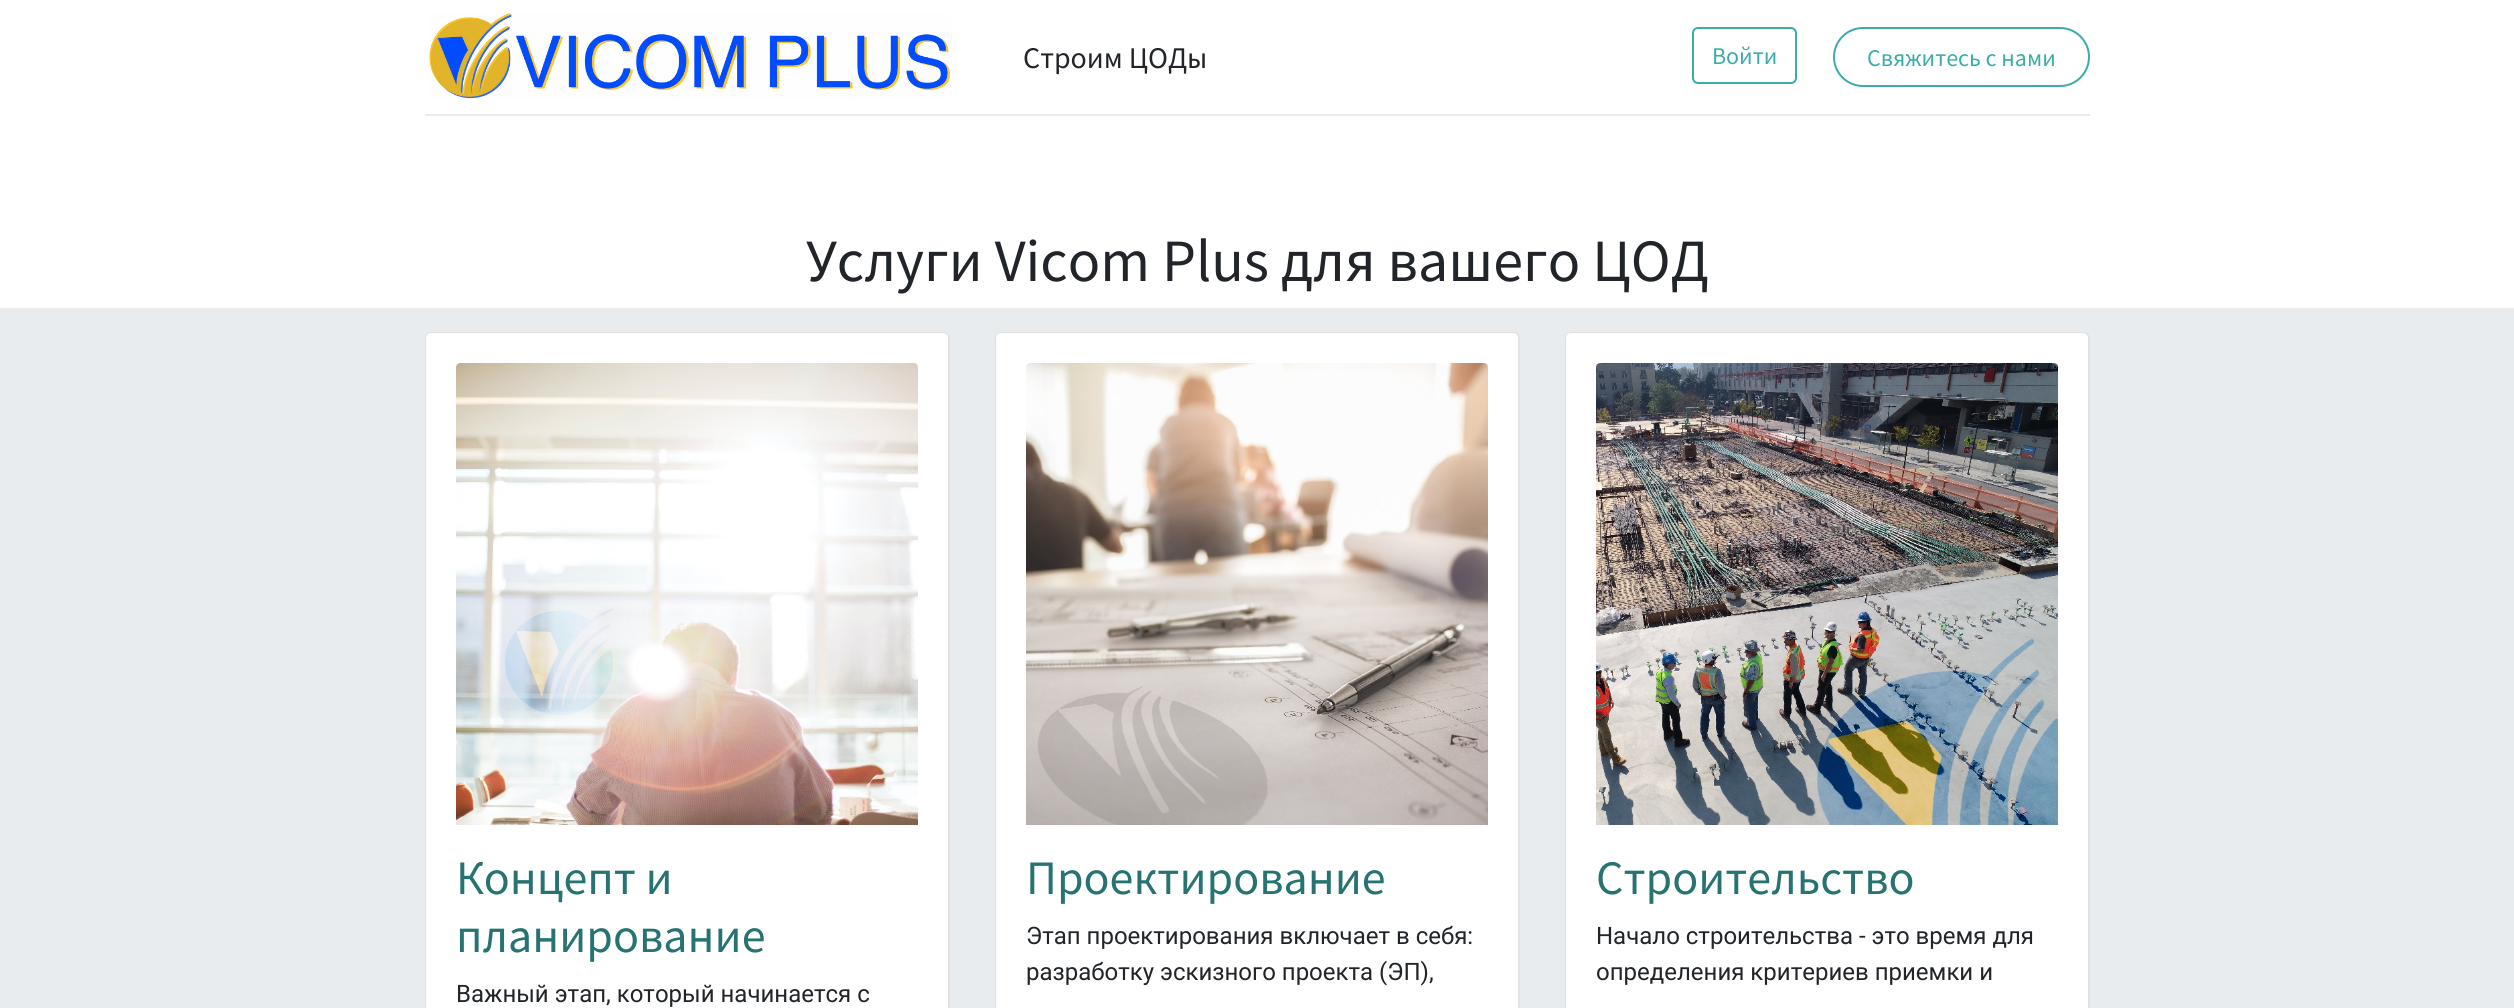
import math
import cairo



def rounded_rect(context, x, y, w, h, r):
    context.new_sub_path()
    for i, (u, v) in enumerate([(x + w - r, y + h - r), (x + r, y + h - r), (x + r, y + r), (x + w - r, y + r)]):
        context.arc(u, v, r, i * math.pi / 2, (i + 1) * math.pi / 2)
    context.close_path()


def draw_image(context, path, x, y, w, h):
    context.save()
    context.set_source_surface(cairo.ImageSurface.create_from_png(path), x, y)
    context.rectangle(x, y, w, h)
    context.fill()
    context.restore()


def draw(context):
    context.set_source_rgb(1, 1, 1)
    context.paint()
    draw_image(context, "images/1.png", 429, 13, 521, 86)
    rounded_rect(context, 1693, 28, 103, 55, 5)
    context.set_source_rgb(58 / 255, 173 / 255, 170 / 255)
    context.stroke()
    rounded_rect(context, 1834, 28, 255, 58, 29)
    context.stroke()
    context.set_source_rgb(233 / 255, 236 / 255, 239 / 255)
    context.rectangle(425, 114, 1665, 2)
    context.fill()
    context.rectangle(0, 308, 2514, 700)
    context.fill()
    context.set_source_rgb(1, 1, 1)
    context.new_path()
    context.move_to(431, 332)
    context.line_to(944, 332)
    context.curve_to(947.5, 332, 950, 334.5, 950, 338)
    context.line_to(950, 1008)
    context.line_to(425, 1008)
    context.line_to(425, 338)
    context.curve_to(425, 334.5, 427.5, 332, 431, 332)
    context.close_path()
    context.fill()
    rounded_rect(context, 426, 333, 523, 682, 5)
    context.set_source_rgba(0, 0, 0, 0.12)
    context.stroke()
    context.set_source_rgba(1, 1, 1, 0.9)
    context.new_path()
    context.move_to(431, 333)
    context.line_to(943, 333)
    context.curve_to(946, 333, 948, 335, 948, 338)
    context.line_to(948, 1008)
    context.line_to(426, 1008)
    context.line_to(426, 338)
    context.curve_to(426, 335, 428, 333, 431, 333)
    context.close_path()
    context.fill()
    draw_image(context, "images/2.png", 456, 363, 462, 462)
    context.set_source_rgb(1, 1, 1)
    context.new_path()
    context.move_to(1001, 332)
    context.line_to(1514, 332)
    context.curve_to(1517.5, 332, 1520, 334.5, 1520, 338)
    context.line_to(1520, 1008)
    context.line_to(995, 1008)
    context.line_to(995, 338)
    context.curve_to(995, 334.5, 997.5, 332, 1001, 332)
    context.close_path()
    context.fill()
    rounded_rect(context, 996, 333, 523, 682, 5)
    context.set_source_rgba(0, 0, 0, 0.12)
    context.stroke()
    context.set_source_rgba(1, 1, 1, 0.9)
    context.new_path()
    context.move_to(1001, 333)
    context.line_to(1513, 333)
    context.curve_to(1516, 333, 1518, 335, 1518, 338)
    context.line_to(1518, 1008)
    context.line_to(996, 1008)
    context.line_to(996, 338)
    context.curve_to(996, 335, 998, 333, 1001, 333)
    context.close_path()
    context.fill()
    draw_image(context, "images/3.png", 1026, 363, 462, 462)
    context.set_source_rgb(1, 1, 1)
    context.new_path()
    context.move_to(1571, 332)
    context.line_to(2084, 332)
    context.curve_to(2087.5, 332, 2090, 334.5, 2090, 338)
    context.line_to(2090, 1008)
    context.line_to(1565, 1008)
    context.line_to(1565, 338)
    context.curve_to(1565, 334.5, 1567.5, 332, 1571, 332)
    context.close_path()
    context.fill()
    rounded_rect(context, 1566, 333, 523, 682, 5)
    context.set_source_rgba(0, 0, 0, 0.12)
    context.stroke()
    context.set_source_rgba(1, 1, 1, 0.9)
    context.new_path()
    context.move_to(1571, 333)
    context.line_to(2083, 333)
    context.curve_to(2086, 333, 2088, 335, 2088, 338)
    context.line_to(2088, 1008)
    context.line_to(1566, 1008)
    context.line_to(1566, 338)
    context.curve_to(1566, 335, 1568, 333, 1571, 333)
    context.close_path()
    context.fill()
    draw_image(context, "images/4.png", 1596, 363, 462, 462)
    context.select_font_face("Source Sans Pro")
    context.set_font_size(30)
    context.set_source_rgb(33 / 255, 37 / 255, 41 / 255)
    context.move_to(1023, 68)
    context.show_text("Строим ЦОДы")
    context.set_font_size(24)
    context.set_source_rgb(58 / 255, 173 / 255, 170 / 255)
    context.move_to(1712, 64)
    context.show_text("Войти")
    context.move_to(1867, 66)
    context.show_text("Свяжитесь с нами")
    context.set_font_size(60)
    context.set_source_rgb(33 / 255, 37 / 255, 41 / 255)
    context.move_to(806, 281)
    context.show_text("Услуги Vicom Plus для вашего ЦОД")
    context.set_font_size(48)
    context.set_source_rgb(38 / 255, 115 / 255, 114 / 255)
    context.move_to(456, 894)
    context.show_text("Концепт и")
    context.move_to(456, 952)
    context.show_text("планирование")
    context.select_font_face("Roboto")
    context.set_font_size(24)
    context.set_source_rgb(33 / 255, 37 / 255, 41 / 255)
    context.move_to(456, 1002)
    context.show_text("Важный этап, который начинается с")
    context.select_font_face("Source Sans Pro")
    context.set_font_size(48)
    context.set_source_rgb(38 / 255, 115 / 255, 114 / 255)
    context.move_to(1026, 894)
    context.show_text("Проектирование")
    context.select_font_face("Roboto")
    context.set_font_size(24)
    context.set_source_rgb(33 / 255, 37 / 255, 41 / 255)
    context.move_to(1026, 944)
    context.show_text("Этап проектирования включает в себя:")
    context.move_to(1026, 980)
    context.show_text("разработку эскизного проекта (ЭП),")
    context.select_font_face("Source Sans Pro")
    context.set_font_size(48)
    context.set_source_rgb(38 / 255, 115 / 255, 114 / 255)
    context.move_to(1596, 894)
    context.show_text("Строительство")
    context.select_font_face("Roboto")
    context.set_font_size(24)
    context.set_source_rgb(33 / 255, 37 / 255, 41 / 255)
    context.move_to(1596, 944)
    context.show_text("Начало строительства - это время для")
    context.move_to(1596, 980)
    context.show_text("определения критериев приемки и")


surface = cairo.ImageSurface(cairo.Format.RGB24, 2514, 1008)
context = cairo.Context(surface)
options = cairo.FontOptions()
options.set_hint_metrics(cairo.HintMetrics.OFF)
options.set_hint_style(cairo.HintStyle.NONE)
context.set_font_options(options)
context.set_miter_limit(4)
draw(context)
surface.write_to_png("out.png")
